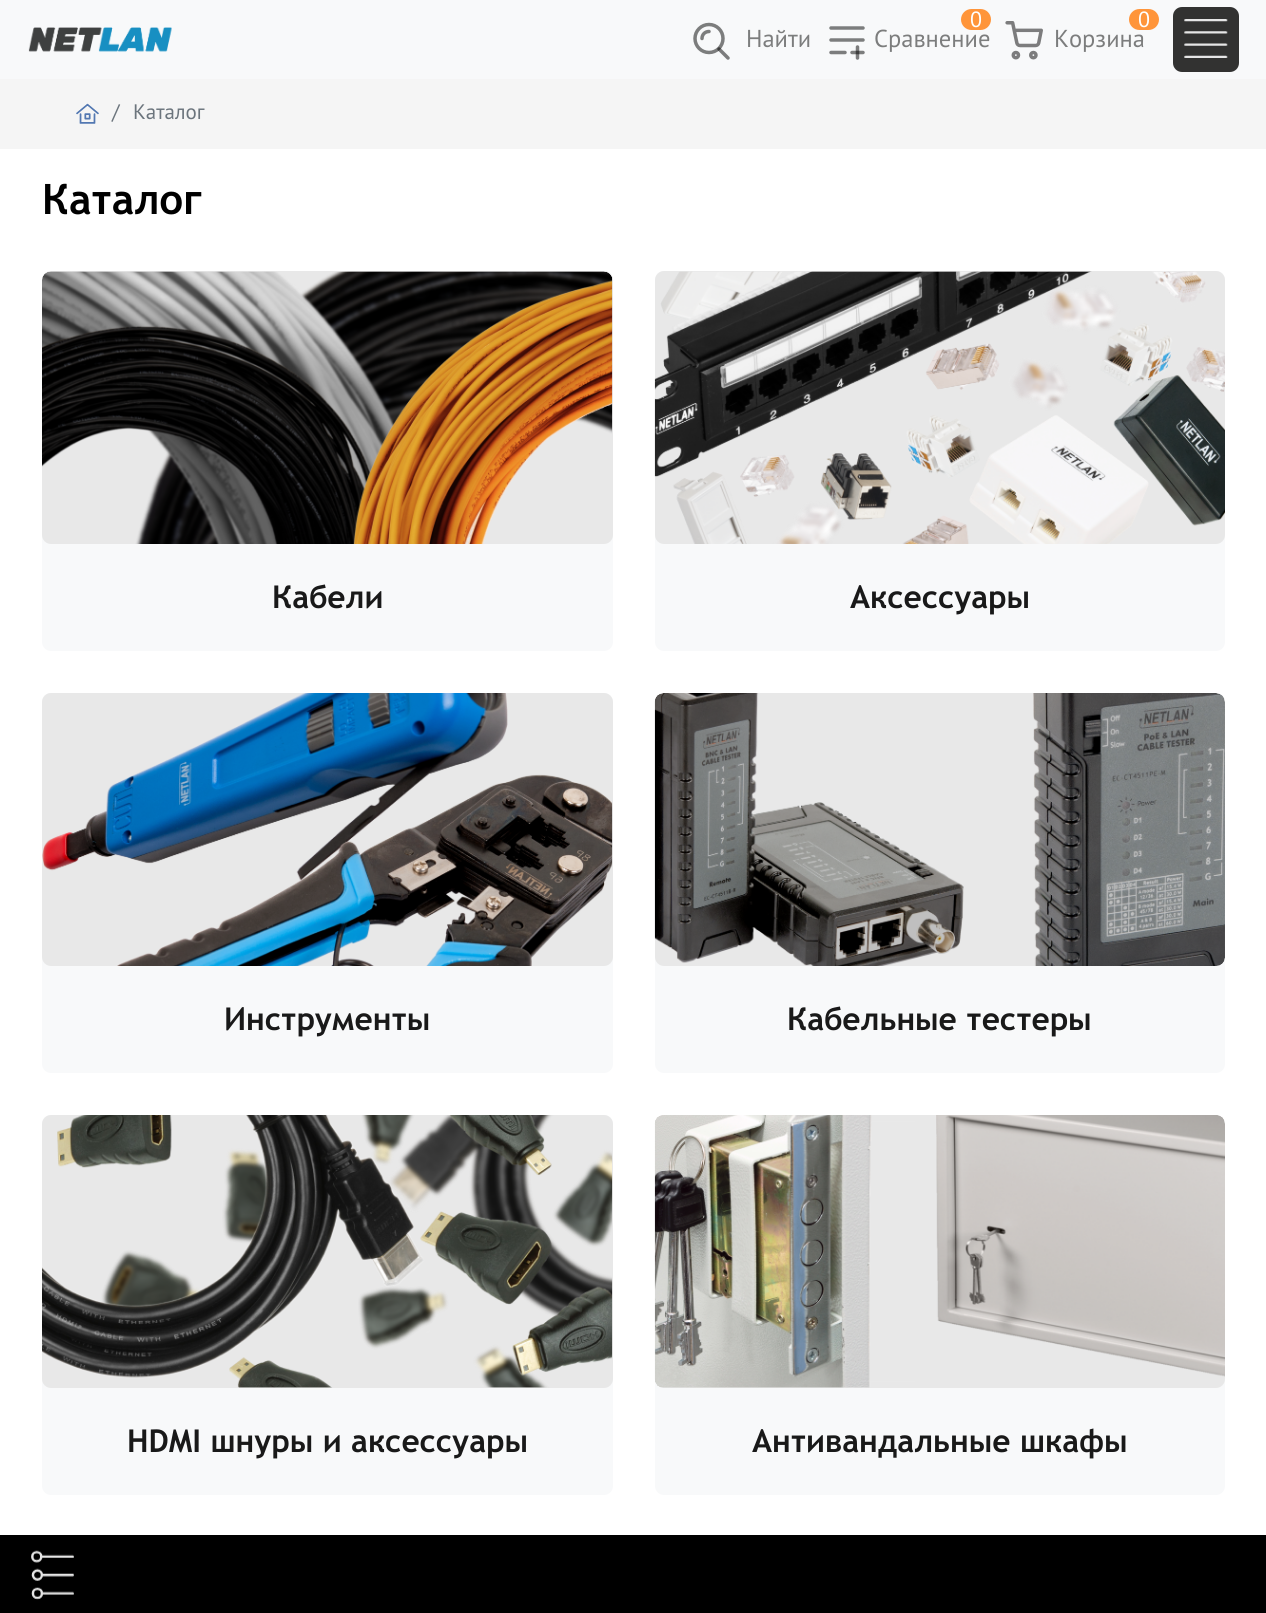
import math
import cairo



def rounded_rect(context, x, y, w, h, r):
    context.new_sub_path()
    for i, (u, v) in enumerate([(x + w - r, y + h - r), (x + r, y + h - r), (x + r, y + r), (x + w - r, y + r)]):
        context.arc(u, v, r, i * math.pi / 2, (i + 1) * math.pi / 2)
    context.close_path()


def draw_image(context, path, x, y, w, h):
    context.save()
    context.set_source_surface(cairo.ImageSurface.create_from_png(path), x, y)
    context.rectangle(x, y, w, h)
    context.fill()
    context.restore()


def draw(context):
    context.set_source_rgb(1, 1, 1)
    context.paint()
    context.set_source_rgb(248 / 255, 249 / 255, 250 / 255)
    context.rectangle(0, 0, 1266, 79)
    context.fill()
    draw_image(context, "images/1.png", 28, 27, 144, 25)
    context.arc(709, 38.5, 14, 0, 2 * math.pi)
    context.set_source_rgb(124 / 255, 125 / 255, 125 / 255)
    context.set_line_width(3.5)
    context.stroke()
    context.new_path()
    context.move_to(702, 38.5)
    context.curve_to(702, 34.5, 705, 31.5, 709, 31.5)
    context.set_line_cap(cairo.LineCap.ROUND)
    context.stroke()
    context.new_path()
    context.move_to(719, 49)
    context.line_to(728, 58)
    context.set_source_rgba(0, 0, 0, 0.5)
    context.stroke()
    context.new_path()
    context.move_to(831, 40)
    context.line_to(863, 40)
    context.move_to(831, 28)
    context.line_to(863, 28)
    context.move_to(831, 52.5)
    context.line_to(845, 52.5)
    context.move_to(852, 52.5)
    context.line_to(863, 52.5)
    context.set_source_rgb(124 / 255, 125 / 255, 125 / 255)
    context.set_line_join(cairo.LineJoin.ROUND)
    context.stroke()
    context.new_path()
    context.move_to(857.5, 47)
    context.line_to(857.5, 58)
    context.set_source_rgba(0, 0, 0, 0.5)
    context.stroke()
    draw_image(context, "images/2.png", 1005, 21, 38, 39)
    context.set_source_rgb(50 / 255, 50 / 255, 49 / 255)
    rounded_rect(context, 1173, 7, 66, 65, 9)
    context.fill()
    draw_image(context, "images/3.png", 1184, 19, 44, 39)
    context.set_source_rgb(245 / 255, 245 / 255, 245 / 255)
    context.rectangle(0, 79, 1266, 70)
    context.fill()
    draw_image(context, "images/4.png", 76, 103, 23, 21)
    context.set_source_rgb(248 / 255, 249 / 255, 250 / 255)
    rounded_rect(context, 42, 271, 571, 380, 9)
    context.fill()
    context.set_source_rgb(232 / 255, 232 / 255, 232 / 255)
    rounded_rect(context, 42, 271, 571, 273, 9)
    context.fill()
    draw_image(context, "images/5.png", 42, 271, 571, 273)
    context.set_source_rgb(248 / 255, 249 / 255, 250 / 255)
    rounded_rect(context, 655, 271, 570, 380, 9)
    context.fill()
    context.set_source_rgb(232 / 255, 232 / 255, 232 / 255)
    rounded_rect(context, 655, 271, 570, 273, 9)
    context.fill()
    draw_image(context, "images/6.png", 654, 271, 571, 273)
    context.set_source_rgb(248 / 255, 249 / 255, 250 / 255)
    rounded_rect(context, 42, 693, 571, 380, 9)
    context.fill()
    context.set_source_rgb(232 / 255, 232 / 255, 232 / 255)
    rounded_rect(context, 42, 693, 571, 273, 9)
    context.fill()
    draw_image(context, "images/7.png", 42, 693, 571, 273)
    context.set_source_rgb(248 / 255, 249 / 255, 250 / 255)
    rounded_rect(context, 655, 693, 570, 380, 9)
    context.fill()
    context.set_source_rgb(232 / 255, 232 / 255, 232 / 255)
    rounded_rect(context, 655, 693, 570, 273, 9)
    context.fill()
    draw_image(context, "images/8.png", 654, 693, 571, 273)
    context.set_source_rgb(248 / 255, 249 / 255, 250 / 255)
    rounded_rect(context, 42, 1115, 571, 380, 9)
    context.fill()
    context.set_source_rgb(232 / 255, 232 / 255, 232 / 255)
    rounded_rect(context, 42, 1115, 571, 273, 9)
    context.fill()
    draw_image(context, "images/9.png", 42, 1115, 571, 273)
    context.set_source_rgb(248 / 255, 249 / 255, 250 / 255)
    rounded_rect(context, 655, 1115, 570, 380, 9)
    context.fill()
    context.set_source_rgb(232 / 255, 232 / 255, 232 / 255)
    rounded_rect(context, 655, 1115, 570, 273, 9)
    context.fill()
    draw_image(context, "images/10.png", 654, 1115, 571, 273)
    context.set_source_rgb(0, 0, 0)
    context.rectangle(0, 1535, 1266, 78)
    context.fill()
    draw_image(context, "images/11.png", 31, 1550, 43, 50)
    context.select_font_face("PT Sans")
    context.set_font_size(24.5)
    context.set_source_rgb(124 / 255, 125 / 255, 125 / 255)
    context.move_to(746, 47)
    context.show_text("Найти")
    context.move_to(874, 47)
    context.show_text("Сравнение")
    context.set_source_rgb(1, 149 / 255, 58 / 255)
    rounded_rect(context, 961, 9, 30, 21, 10.5)
    context.fill()
    context.set_font_size(22)
    context.set_source_rgb(1, 1, 1)
    context.move_to(970, 27)
    context.show_text("0")
    context.set_font_size(24.5)
    context.set_source_rgb(124 / 255, 125 / 255, 125 / 255)
    context.move_to(1054, 47)
    context.show_text("Корзина")
    context.set_source_rgb(1, 149 / 255, 58 / 255)
    rounded_rect(context, 1129, 9, 30, 21, 10.5)
    context.fill()
    context.set_font_size(22)
    context.set_source_rgb(1, 1, 1)
    context.move_to(1138, 27)
    context.show_text("0")
    context.set_font_size(21)
    context.set_source_rgb(108 / 255, 117 / 255, 125 / 255)
    context.move_to(112, 119)
    context.show_text("/")
    context.move_to(133, 119)
    context.show_text("Каталог")
    context.select_font_face("Trebuchet MS", cairo.FontSlant.NORMAL, cairo.FontWeight.BOLD)
    context.set_font_size(42)
    context.set_source_rgb(0, 0, 0)
    context.move_to(42, 214)
    context.show_text("Каталог")
    context.set_font_size(31.5)
    context.set_source_rgb(25 / 255, 25 / 255, 25 / 255)
    context.move_to(272, 608)
    context.show_text("Кабели")
    context.move_to(850, 608)
    context.show_text("Аксессуары")
    context.move_to(224, 1030)
    context.show_text("Инструменты")
    context.move_to(787, 1030)
    context.show_text("Кабельные тестеры")
    context.move_to(127, 1452)
    context.show_text("HDMI шнуры и аксессуары")
    context.move_to(752, 1452)
    context.show_text("Антивандальные шкафы")


surface = cairo.ImageSurface(cairo.Format.RGB24, 1266, 1613)
context = cairo.Context(surface)
options = cairo.FontOptions()
options.set_hint_metrics(cairo.HintMetrics.OFF)
options.set_hint_style(cairo.HintStyle.NONE)
context.set_font_options(options)
context.set_miter_limit(4)
draw(context)
surface.write_to_png("out.png")
